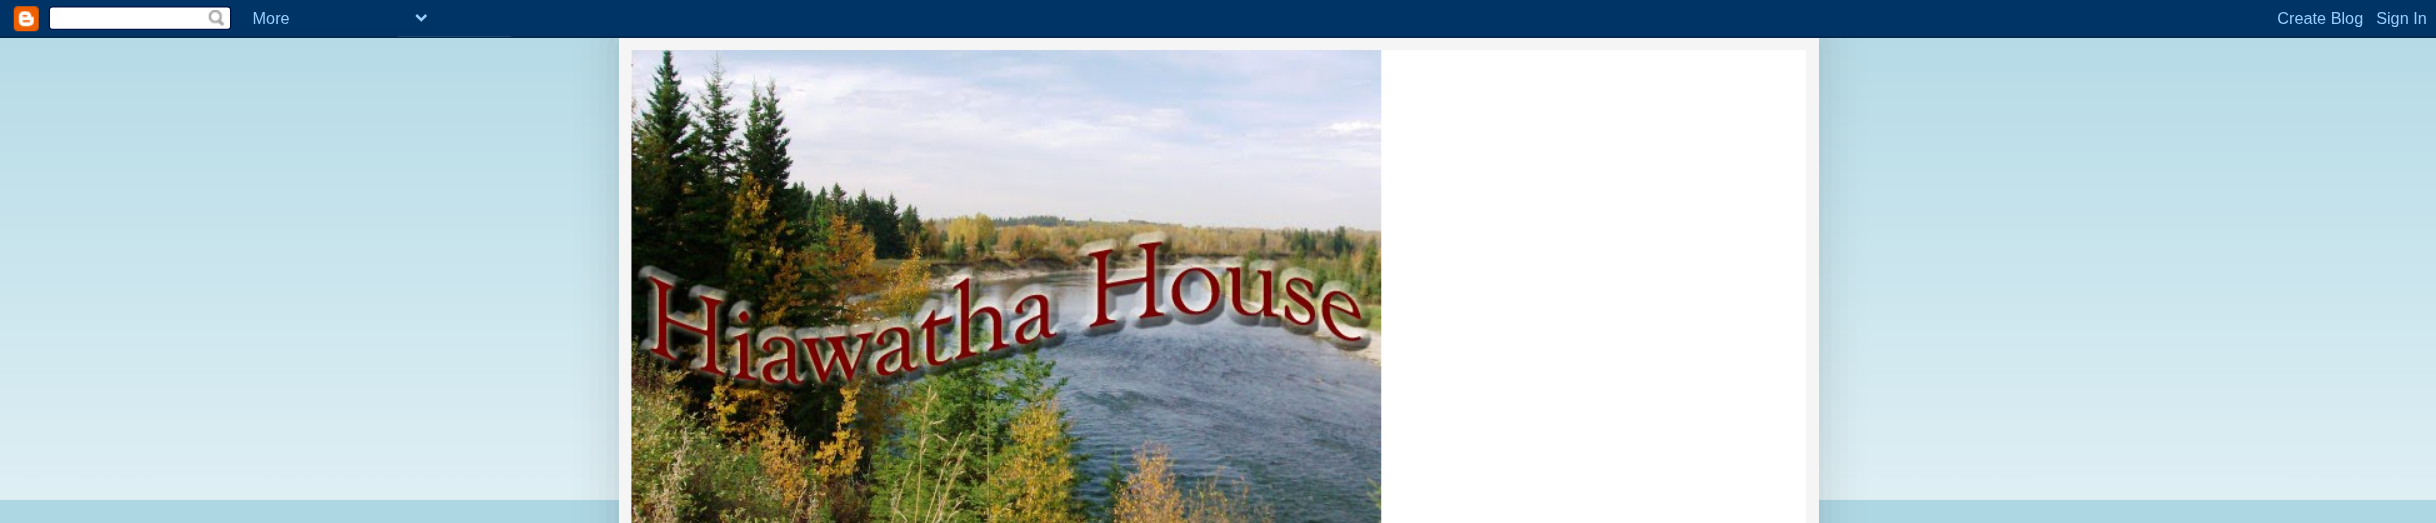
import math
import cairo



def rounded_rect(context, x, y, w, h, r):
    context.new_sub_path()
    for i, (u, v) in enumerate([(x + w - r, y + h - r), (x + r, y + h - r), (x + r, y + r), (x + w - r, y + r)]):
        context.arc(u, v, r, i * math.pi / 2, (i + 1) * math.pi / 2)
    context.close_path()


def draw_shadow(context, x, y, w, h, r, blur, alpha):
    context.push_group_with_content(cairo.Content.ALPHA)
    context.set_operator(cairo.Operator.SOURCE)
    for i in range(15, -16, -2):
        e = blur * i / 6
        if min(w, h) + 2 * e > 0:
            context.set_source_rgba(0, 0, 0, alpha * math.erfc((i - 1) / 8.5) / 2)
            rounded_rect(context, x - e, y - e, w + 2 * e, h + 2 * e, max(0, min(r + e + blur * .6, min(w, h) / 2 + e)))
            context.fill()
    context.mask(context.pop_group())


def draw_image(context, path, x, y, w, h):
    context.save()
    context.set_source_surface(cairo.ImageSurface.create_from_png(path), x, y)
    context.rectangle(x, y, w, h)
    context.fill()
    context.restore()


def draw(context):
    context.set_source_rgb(174 / 255, 215 / 255, 228 / 255)
    context.paint()
    draw_image(context, "images/3.png", 0, 36, 2436, 464)
    context.set_source_rgb(0, 0, 0)
    draw_shadow(context, 619, 38, 1200, 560, 0, 25, 0.15)
    draw_image(context, "images/1.png", 0, 0, 2436, 38)
    context.set_source_rgb(245 / 255, 245 / 255, 245 / 255)
    context.rectangle(619, 38, 1200, 485)
    context.fill()
    context.set_source_rgb(1, 1, 1)
    context.rectangle(631, 50, 1175, 473)
    context.fill()
    draw_image(context, "images/2.png", 631, 50, 751, 473)


surface = cairo.ImageSurface(cairo.Format.RGB24, 2436, 523)
context = cairo.Context(surface)
options = cairo.FontOptions()
options.set_hint_metrics(cairo.HintMetrics.OFF)
options.set_hint_style(cairo.HintStyle.NONE)
context.set_font_options(options)
context.set_miter_limit(4)
draw(context)
surface.write_to_png("out.png")
